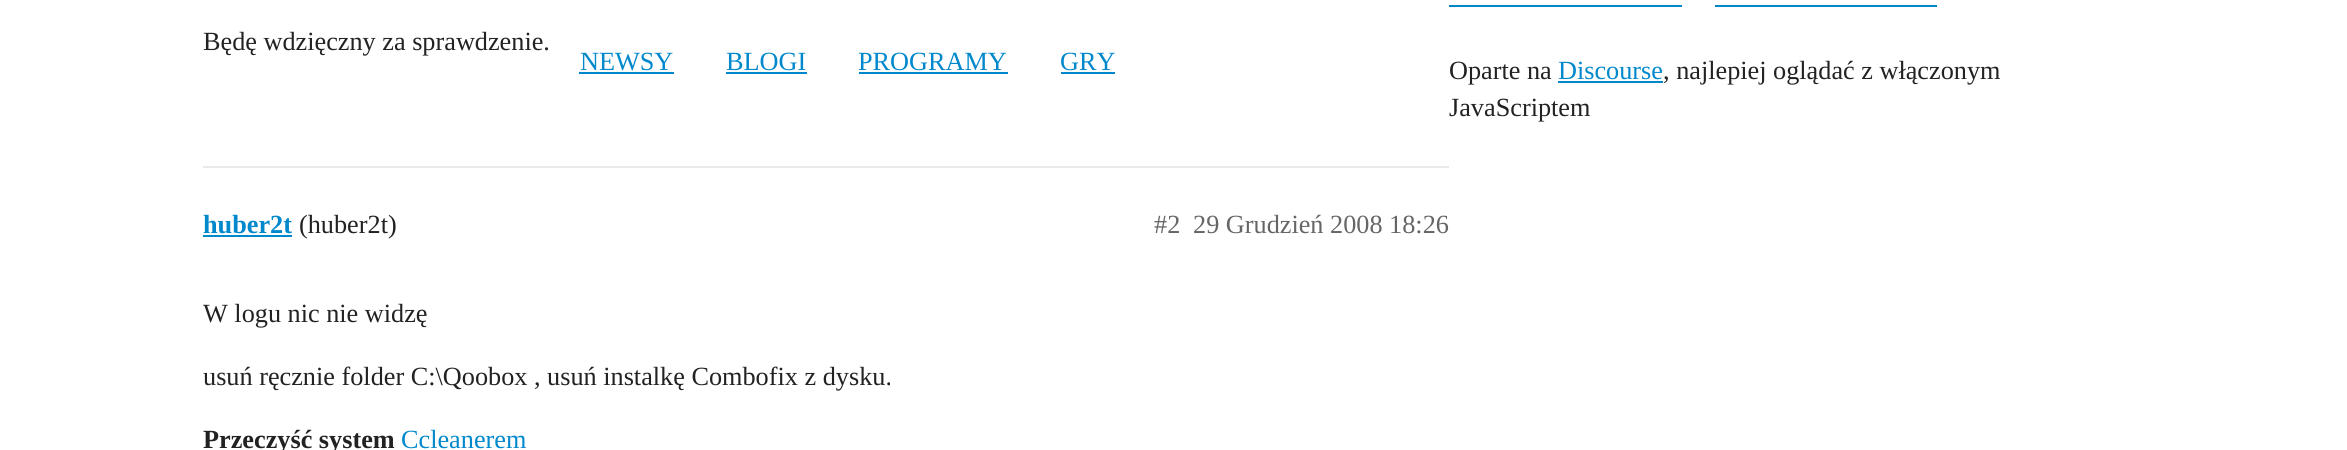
import math
import cairo



def draw(context):
    context.set_source_rgb(1, 1, 1)
    context.paint()
    context.set_source_rgb(233 / 255, 233 / 255, 233 / 255)
    context.rectangle(203, 166, 1246, 2)
    context.fill()
    context.set_source_rgb(0, 136 / 255, 204 / 255)
    context.rectangle(203, 235, 89, 2)
    context.fill()
    context.rectangle(579, 72, 95, 2)
    context.fill()
    context.rectangle(726, 72, 81, 2)
    context.fill()
    context.rectangle(859, 72, 149, 2)
    context.fill()
    context.rectangle(1061, 72, 54, 2)
    context.fill()
    context.rectangle(1449, 5, 233, 2)
    context.fill()
    context.rectangle(1715, 5, 222, 2)
    context.fill()
    context.rectangle(1558, 81, 105, 2)
    context.fill()
    context.select_font_face("Liberation Serif")
    context.set_font_size(26.25)
    context.set_source_rgb(34 / 255, 34 / 255, 34 / 255)
    context.move_to(203, 50)
    context.show_text("Będę wdzięczny za sprawdzenie.")
    context.select_font_face("Liberation Serif", cairo.FontSlant.NORMAL, cairo.FontWeight.BOLD)
    context.set_source_rgb(0, 136 / 255, 204 / 255)
    context.move_to(203, 233)
    context.show_text("huber2t")
    context.select_font_face("Liberation Serif")
    context.set_source_rgb(34 / 255, 34 / 255, 34 / 255)
    context.move_to(299, 233)
    context.show_text("(huber2t)")
    context.set_source_rgb(102 / 255, 102 / 255, 102 / 255)
    context.move_to(1154, 233)
    context.show_text("#2")
    context.move_to(1193, 233)
    context.show_text("29 Grudzień 2008 18:26")
    context.set_source_rgb(34 / 255, 34 / 255, 34 / 255)
    context.move_to(203, 322)
    context.show_text("W logu nic nie widzę")
    context.move_to(203, 385)
    context.show_text("usuń ręcznie folder C:\\Qoobox , usuń instalkę Combofix z dysku.")
    context.select_font_face("Liberation Serif", cairo.FontSlant.NORMAL, cairo.FontWeight.BOLD)
    context.move_to(203, 448)
    context.show_text("Przeczyść system")
    context.select_font_face("Liberation Serif")
    context.set_source_rgb(0, 136 / 255, 204 / 255)
    context.move_to(401, 448)
    context.show_text("Ccleanerem")
    context.move_to(580, 70)
    context.show_text("NEWSY")
    context.move_to(726, 70)
    context.show_text("BLOGI")
    context.move_to(858, 70)
    context.show_text("PROGRAMY")
    context.move_to(1060, 70)
    context.show_text("GRY")
    context.set_source_rgb(34 / 255, 34 / 255, 34 / 255)
    context.move_to(1449, 79)
    context.show_text("Oparte na")
    context.set_source_rgb(0, 136 / 255, 204 / 255)
    context.move_to(1558, 79)
    context.show_text("Discourse")
    context.set_source_rgb(34 / 255, 34 / 255, 34 / 255)
    context.move_to(1663, 79)
    context.show_text(", najlepiej oglądać z włączonym")
    context.move_to(1449, 116)
    context.show_text("JavaScriptem")


surface = cairo.ImageSurface(cairo.Format.RGB24, 2347, 450)
context = cairo.Context(surface)
options = cairo.FontOptions()
options.set_hint_metrics(cairo.HintMetrics.OFF)
options.set_hint_style(cairo.HintStyle.NONE)
context.set_font_options(options)
context.set_miter_limit(4)
draw(context)
surface.write_to_png("out.png")
